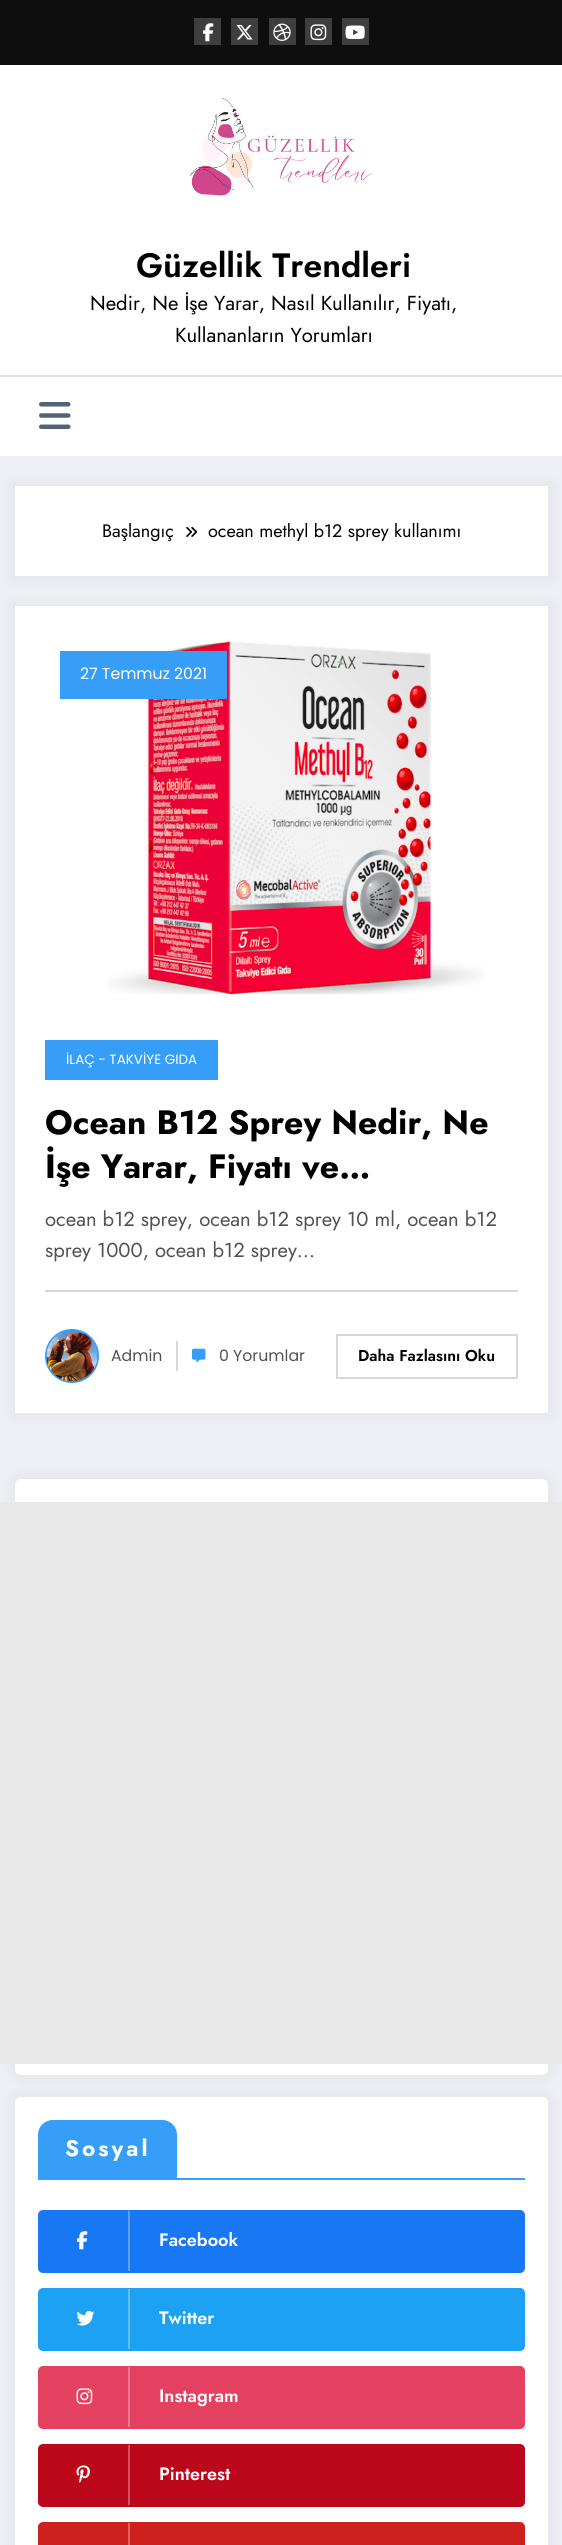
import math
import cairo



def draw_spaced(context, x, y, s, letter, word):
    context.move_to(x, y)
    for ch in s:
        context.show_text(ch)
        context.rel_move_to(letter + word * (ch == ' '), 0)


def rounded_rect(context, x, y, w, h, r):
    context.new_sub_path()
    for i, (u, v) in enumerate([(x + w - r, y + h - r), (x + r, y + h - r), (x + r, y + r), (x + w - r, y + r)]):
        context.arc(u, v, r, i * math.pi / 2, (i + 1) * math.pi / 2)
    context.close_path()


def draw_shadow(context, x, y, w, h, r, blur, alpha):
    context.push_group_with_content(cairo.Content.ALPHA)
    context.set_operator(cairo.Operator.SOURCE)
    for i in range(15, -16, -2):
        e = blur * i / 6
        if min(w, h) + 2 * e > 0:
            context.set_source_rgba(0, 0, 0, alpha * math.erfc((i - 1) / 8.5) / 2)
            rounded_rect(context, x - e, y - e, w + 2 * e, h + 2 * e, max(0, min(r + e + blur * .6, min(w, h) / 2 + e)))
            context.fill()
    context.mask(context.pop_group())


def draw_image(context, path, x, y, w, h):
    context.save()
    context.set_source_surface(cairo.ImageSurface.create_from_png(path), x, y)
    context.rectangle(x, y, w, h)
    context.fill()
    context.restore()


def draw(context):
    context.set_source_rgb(238 / 255, 238 / 255, 245 / 255)
    context.paint()
    context.set_source_rgb(14 / 255, 14 / 255, 14 / 255)
    context.rectangle(0, 0, 562, 65)
    context.fill()
    context.set_source_rgb(62 / 255, 62 / 255, 62 / 255)
    context.rectangle(194, 18, 27, 27)
    context.fill()
    draw_image(context, "images/1.png", 203, 23, 11, 19)
    context.rectangle(231, 18, 27, 27)
    context.fill()
    draw_image(context, "images/2.png", 236, 24, 17, 16)
    context.rectangle(269, 18, 27, 27)
    context.fill()
    draw_image(context, "images/3.png", 273, 23, 18, 18)
    context.rectangle(305, 18, 27, 27)
    context.fill()
    draw_image(context, "images/4.png", 310, 24, 17, 17)
    context.rectangle(342, 18, 27, 27)
    context.fill()
    draw_image(context, "images/5.png", 345, 25, 20, 14)
    context.set_source_rgb(1, 1, 1)
    context.rectangle(0, 65, 562, 391)
    context.fill()
    draw_image(context, "images/6.png", 190, 98, 183, 98)
    context.set_source_rgb(225 / 255, 225 / 255, 225 / 255)
    context.rectangle(0, 375, 562, 2)
    context.fill()
    draw_image(context, "images/7.png", 39, 402, 32, 27)
    context.set_source_rgb(23 / 255, 23 / 255, 35 / 255)
    draw_shadow(context, 12, 483, 539, 96, 0, 6, 0.05)
    context.set_source_rgb(1, 1, 1)
    context.rectangle(15, 486, 533, 90)
    context.fill()
    draw_image(context, "images/8.png", 186, 526, 12, 11)
    context.set_source_rgb(23 / 255, 23 / 255, 35 / 255)
    draw_shadow(context, 12, 603, 539, 813, 0, 6, 0.05)
    context.set_source_rgb(1, 1, 1)
    context.rectangle(15, 606, 533, 807)
    context.fill()
    draw_image(context, "images/9.png", 108, 641, 376, 354)
    context.set_source_rgb(54 / 255, 158 / 255, 246 / 255)
    context.rectangle(60, 651, 167, 48)
    context.fill()
    context.rectangle(45, 1040, 173, 40)
    context.fill()
    context.set_source_rgb(215 / 255, 215 / 255, 215 / 255)
    context.rectangle(45, 1290, 473, 2)
    context.fill()
    context.arc(72, 1356, 26, 0, 2 * math.pi)
    context.set_source_rgb(54 / 255, 158 / 255, 246 / 255)
    context.stroke()
    draw_image(context, "images/10.png", 46, 1330, 52, 52)
    context.set_source_rgb(215 / 255, 215 / 255, 215 / 255)
    context.rectangle(176, 1341, 2, 30)
    context.fill()
    draw_image(context, "images/11.png", 192, 1348, 14, 15)
    context.rectangle(337, 1335, 180, 43)
    context.stroke()
    context.set_source_rgb(23 / 255, 23 / 255, 35 / 255)
    draw_shadow(context, 12, 1476, 539, 602, 9, 6, 0.05)
    context.set_source_rgb(1, 1, 1)
    rounded_rect(context, 15, 1479, 533, 596, 6)
    context.fill()
    context.set_source_rgb(232 / 255, 232 / 255, 232 / 255)
    context.rectangle(0, 1502, 562, 562)
    context.fill()
    context.set_source_rgb(23 / 255, 23 / 255, 35 / 255)
    draw_shadow(context, 12, 2094, 539, 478, 9, 6, 0.05)
    context.set_source_rgb(1, 1, 1)
    rounded_rect(context, 15, 2097, 533, 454, 6)
    context.fill()
    context.set_source_rgb(54 / 255, 158 / 255, 246 / 255)
    context.rectangle(38, 2178, 487, 2)
    context.fill()
    context.new_path()
    context.move_to(53, 2120)
    context.line_to(162, 2120)
    context.curve_to(170.5, 2120, 177, 2126.5, 177, 2135)
    context.line_to(177, 2178)
    context.line_to(38, 2178)
    context.line_to(38, 2135)
    context.curve_to(38, 2126.5, 44.5, 2120, 53, 2120)
    context.close_path()
    context.fill()
    context.set_source_rgb(24 / 255, 119 / 255, 242 / 255)
    rounded_rect(context, 39, 2211, 485, 61, 4)
    context.fill_preserve()
    context.stroke()
    context.set_source_rgb(93 / 255, 160 / 255, 246 / 255)
    context.rectangle(128, 2211, 2, 60)
    context.fill()
    draw_image(context, "images/12.png", 77, 2231, 11, 19)
    context.set_source_rgb(29 / 255, 161 / 255, 242 / 255)
    rounded_rect(context, 39, 2289, 485, 61, 4)
    context.fill_preserve()
    context.stroke()
    context.set_source_rgb(97 / 255, 189 / 255, 246 / 255)
    context.rectangle(128, 2289, 2, 60)
    context.fill()
    draw_image(context, "images/13.png", 76, 2311, 19, 15)
    context.set_source_rgb(228 / 255, 64 / 255, 95 / 255)
    rounded_rect(context, 39, 2367, 485, 61, 4)
    context.fill_preserve()
    context.stroke()
    context.set_source_rgb(236 / 255, 121 / 255, 143 / 255)
    context.rectangle(128, 2367, 2, 60)
    context.fill()
    draw_image(context, "images/14.png", 76, 2388, 17, 17)
    context.set_source_rgb(189 / 255, 8 / 255, 28 / 255)
    rounded_rect(context, 39, 2445, 485, 61, 4)
    context.fill_preserve()
    context.stroke()
    context.set_source_rgb(209 / 255, 82 / 255, 96 / 255)
    context.rectangle(128, 2445, 2, 60)
    context.fill()
    draw_image(context, "images/15.png", 76, 2465, 14, 18)
    context.set_source_rgb(205 / 255, 32 / 255, 31 / 255)
    rounded_rect(context, 39, 2523, 485, 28, 4)
    context.fill_preserve()
    context.stroke()
    context.set_source_rgb(220 / 255, 99 / 255, 98 / 255)
    context.rectangle(128, 2523, 2, 22)
    context.fill()
    context.select_font_face("Jost SemiBold")
    context.set_font_size(33.75)
    context.set_source_rgb(0, 0, 0)
    context.move_to(136, 277)
    context.show_text("Güzellik Trendleri")
    context.select_font_face("Jost")
    context.set_font_size(20.25)
    context.move_to(90, 310)
    context.show_text("Nedir, Ne İşe Yarar, Nasıl Kullanılır, Fiyatı,")
    context.move_to(175, 342)
    context.show_text("Kullananların Yorumları")
    context.set_font_size(18)
    context.move_to(102, 537)
    context.show_text("Başlangıç")
    context.move_to(208, 537)
    context.show_text("ocean methyl b12 sprey kullanımı")
    context.select_font_face("Poppins")
    context.set_font_size(15.75)
    context.set_source_rgb(1, 1, 1)
    context.move_to(80, 679)
    context.show_text("27 Temmuz 2021")
    context.set_font_size(13.5)
    context.move_to(66, 1064)
    context.show_text("İLAÇ - TAKVİYE GIDA")
    context.select_font_face("Jost", cairo.FontSlant.NORMAL, cairo.FontWeight.BOLD)
    context.set_font_size(33.75)
    context.set_source_rgb(0, 0, 0)
    context.move_to(45, 1134)
    context.show_text("Ocean B12 Sprey Nedir, Ne")
    context.move_to(45, 1178)
    context.show_text("İşe Yarar, Fiyatı ve…")
    context.select_font_face("Jost")
    context.set_font_size(20.25)
    context.set_source_rgb(82 / 255, 82 / 255, 82 / 255)
    context.move_to(45, 1226)
    context.show_text("ocean b12 sprey, ocean b12 sprey 10 ml, ocean b12")
    context.move_to(45, 1257)
    context.show_text("sprey 1000, ocean b12 sprey…")
    context.select_font_face("Poppins")
    context.set_font_size(15.75)
    context.move_to(111, 1361)
    context.show_text("Admin")
    context.move_to(219, 1361)
    context.show_text("0 Yorumlar")
    context.select_font_face("Jost SemiBold")
    context.set_source_rgb(0, 0, 0)
    context.move_to(358, 1361)
    context.show_text("Daha Fazlasını Oku")
    context.select_font_face("Jost", cairo.FontSlant.NORMAL, cairo.FontWeight.BOLD)
    context.set_font_size(22.5)
    context.set_source_rgb(1, 1, 1)
    draw_spaced(context, 65, 2156, "Sosyal", 3, 0)
    context.select_font_face("Jost SemiBold")
    context.set_font_size(18)
    context.move_to(159, 2246)
    context.show_text("Facebook")
    context.move_to(159, 2324)
    context.show_text("Twitter")
    context.move_to(159, 2402)
    context.show_text("Instagram")
    context.move_to(159, 2480)
    context.show_text("Pinterest")


surface = cairo.ImageSurface(cairo.Format.RGB24, 562, 2545)
context = cairo.Context(surface)
options = cairo.FontOptions()
options.set_hint_metrics(cairo.HintMetrics.OFF)
options.set_hint_style(cairo.HintStyle.NONE)
context.set_font_options(options)
context.set_miter_limit(4)
draw(context)
surface.write_to_png("out.png")
